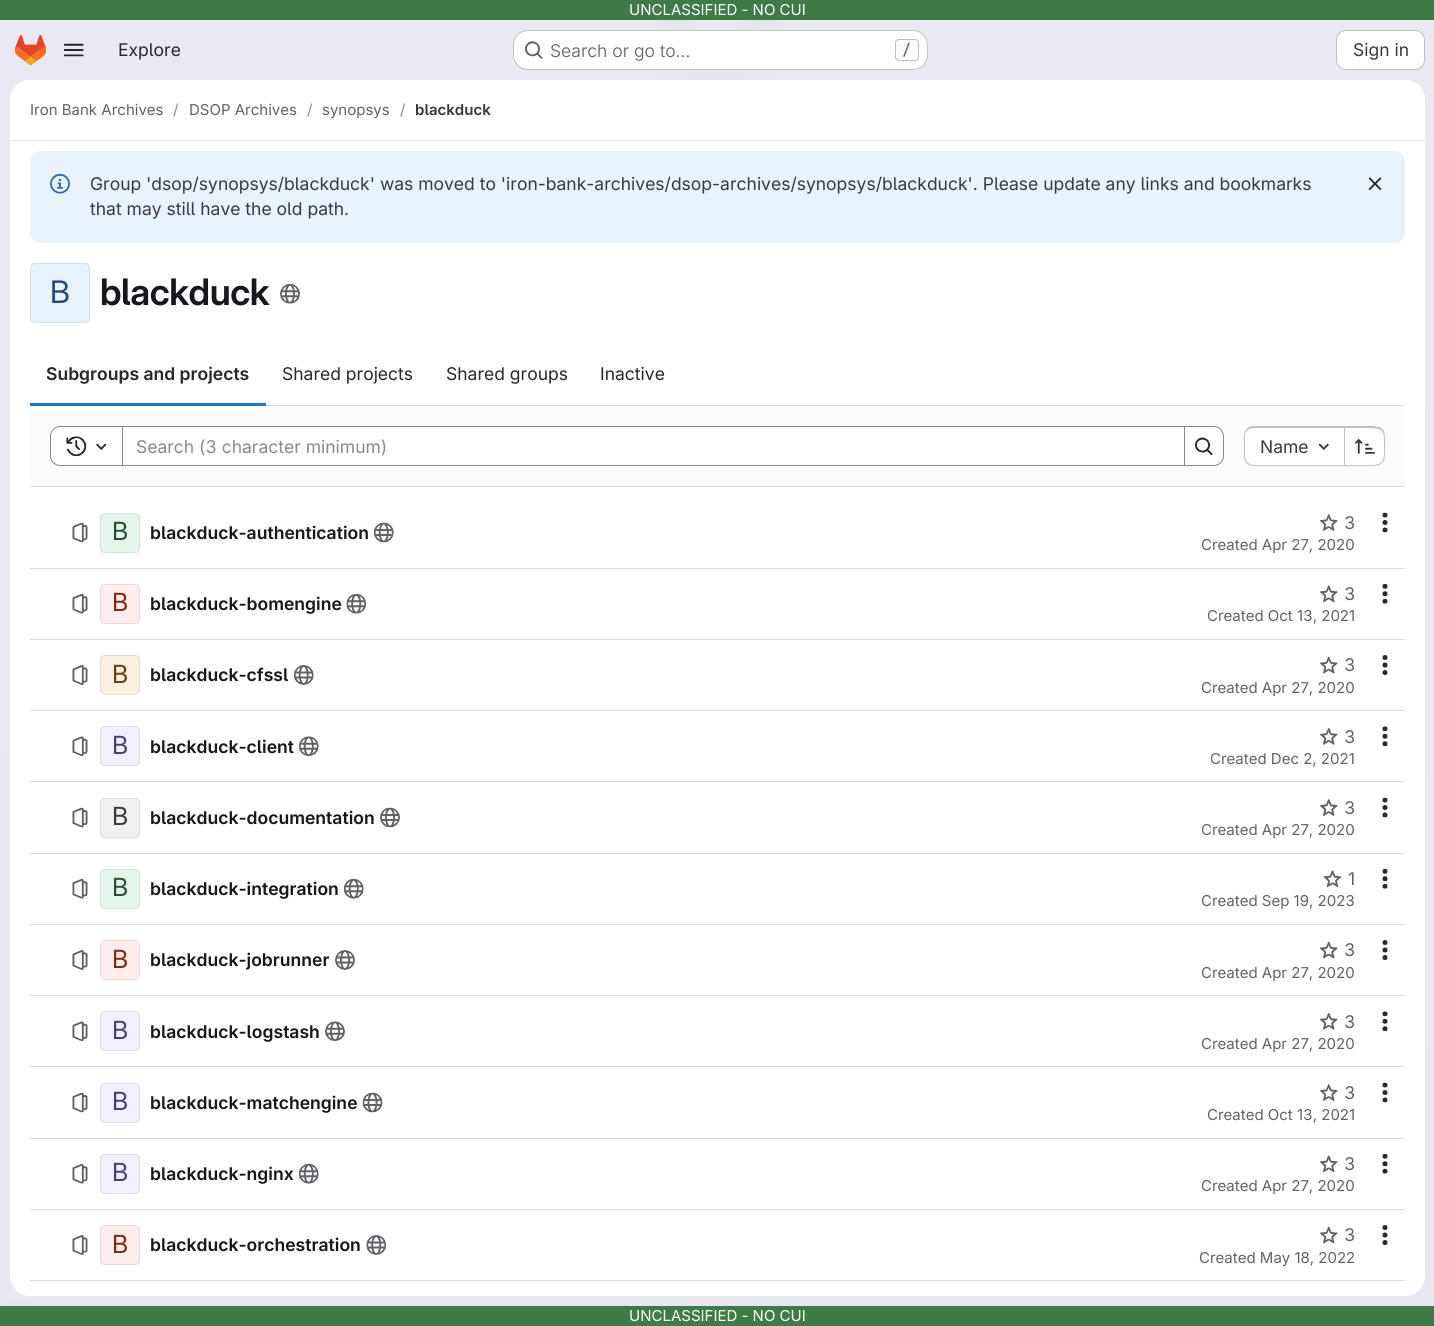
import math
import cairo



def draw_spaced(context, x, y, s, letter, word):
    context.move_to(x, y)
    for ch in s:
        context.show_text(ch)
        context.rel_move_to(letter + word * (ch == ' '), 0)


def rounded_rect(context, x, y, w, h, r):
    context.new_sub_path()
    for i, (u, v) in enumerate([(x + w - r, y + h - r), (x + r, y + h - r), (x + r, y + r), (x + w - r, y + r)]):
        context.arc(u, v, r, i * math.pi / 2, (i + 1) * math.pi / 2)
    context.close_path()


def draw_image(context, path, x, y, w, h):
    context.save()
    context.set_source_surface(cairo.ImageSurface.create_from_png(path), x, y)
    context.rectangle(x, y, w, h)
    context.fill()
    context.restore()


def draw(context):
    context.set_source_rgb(1, 1, 1)
    context.paint()
    gradient = cairo.LinearGradient(853, 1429, 582, -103)
    gradient.add_color_stop_rgba(0, 232 / 255, 230 / 255, 240 / 255, 1)
    gradient.add_color_stop_rgba(0.7, 234 / 255, 233 / 255, 242 / 255, 1)
    context.set_source(gradient)
    context.rectangle(0, 20, 1434, 1286)
    context.fill()
    gradient = cairo.RadialGradient(0, 0, 0, 0, 0, 1)
    gradient.set_matrix(cairo.Matrix(1 / 718, 0, 0, 1 / 1326, -1 * 718 / 718, -1 * 0 / 1326))
    gradient.add_color_stop_rgba(0, 228 / 255, 226 / 255, 237 / 255, 1)
    gradient.add_color_stop_rgba(0.12, 228 / 255, 226 / 255, 237 / 255, 0)
    context.set_source(gradient)
    context.rectangle(657, 20, 121, 60)
    context.fill()
    gradient = cairo.RadialGradient(0, 0, 0, 0, 0, 1)
    gradient.set_matrix(cairo.Matrix(1 / 718, 0, 0, 1 / 1326, -1 * 718 / 718, -1 * 0 / 1326))
    gradient.add_color_stop_rgba(0, 228 / 255, 226 / 255, 236 / 255, 1)
    gradient.add_color_stop_rgba(0.09, 228 / 255, 226 / 255, 236 / 255, 0)
    context.set_source(gradient)
    context.rectangle(690, 20, 52, 30)
    context.fill()
    gradient = cairo.RadialGradient(718, 0, 0, 718, 0, 1508)
    gradient.add_color_stop_rgba(0, 1, 1, 1, 0.6)
    gradient.add_color_stop_rgba(0.03, 1, 1, 1, 0)
    context.set_source(gradient)
    context.rectangle(685, 20, 66, 10)
    context.fill()
    context.set_source_rgb(63 / 255, 122 / 255, 71 / 255)
    context.rectangle(0, 0, 1434, 20)
    context.fill()
    draw_image(context, "images/1.png", 15, 35, 31, 30)
    draw_image(context, "images/2.png", 63, 43, 21, 14)
    context.set_source_rgb(1, 1, 1)
    rounded_rect(context, 513, 30, 415, 40, 15)
    context.fill()
    rounded_rect(context, 513.5, 30.5, 414, 39, 14.5)
    context.set_source_rgba(5 / 255, 5 / 255, 6 / 255, 0.24)
    context.set_line_width(1)
    context.stroke()
    draw_image(context, "images/3.png", 525, 41, 18, 18)
    context.set_source_rgb(251 / 255, 250 / 255, 253 / 255)
    rounded_rect(context, 895.5, 39.5, 23, 21, 3.5)
    context.fill_preserve()
    context.set_source_rgb(191 / 255, 191 / 255, 195 / 255)
    context.stroke()
    context.set_source_rgb(1, 1, 1)
    rounded_rect(context, 1336.5, 30.5, 88, 39, 9.5)
    context.fill_preserve()
    context.set_source_rgb(191 / 255, 191 / 255, 195 / 255)
    context.stroke()
    context.set_source_rgb(1, 1, 1)
    rounded_rect(context, 10, 80, 1415, 1216, 20)
    context.fill()
    context.new_path()
    context.move_to(30, 80)
    context.line_to(1405, 80)
    context.curve_to(1416, 80, 1425, 89, 1425, 100)
    context.line_to(1425, 141)
    context.line_to(10, 141)
    context.line_to(10, 100)
    context.curve_to(10, 89, 19, 80, 30, 80)
    context.close_path()
    context.fill()
    context.set_source_rgb(225 / 255, 223 / 255, 236 / 255)
    context.rectangle(10, 140, 1415, 1)
    context.fill()
    context.set_source_rgb(233 / 255, 243 / 255, 252 / 255)
    rounded_rect(context, 30, 151, 1375, 92, 10)
    context.fill()
    draw_image(context, "images/4.png", 50, 173, 20, 21)
    draw_image(context, "images/5.png", 1368, 177, 14, 13)
    context.set_source_rgb(231 / 255, 242 / 255, 252 / 255)
    rounded_rect(context, 30, 263, 60, 60, 5)
    context.fill()
    rounded_rect(context, 30.5, 263.5, 59, 59, 4.5)
    context.set_source_rgba(5 / 255, 5 / 255, 6 / 255, 0.08)
    context.stroke()
    draw_image(context, "images/6.png", 280, 283, 20, 21)
    context.set_source_rgb(220 / 255, 220 / 255, 222 / 255)
    context.rectangle(30, 486, 1375, 1)
    context.fill()
    context.set_source_rgb(31 / 255, 117 / 255, 203 / 255)
    context.rectangle(30, 403, 236, 3)
    context.fill()
    context.set_source_rgb(251 / 255, 250 / 255, 253 / 255)
    context.rectangle(30, 406, 1375, 80)
    context.fill()
    context.set_source_rgb(220 / 255, 220 / 255, 222 / 255)
    context.rectangle(266, 405, 1139, 1)
    context.fill()
    context.set_source_rgb(1, 1, 1)
    context.rectangle(123, 427, 1061, 38)
    context.fill()
    context.rectangle(121.5, 426.5, 1063, 39)
    context.set_source_rgb(137 / 255, 136 / 255, 141 / 255)
    context.stroke()
    context.set_source_rgb(1, 1, 1)
    context.new_path()
    context.move_to(60, 426.5)
    context.line_to(122.5, 426.5)
    context.line_to(122.5, 465.5)
    context.line_to(60, 465.5)
    context.curve_to(55, 465.5, 50.5, 461, 50.5, 456)
    context.line_to(50.5, 436)
    context.curve_to(50.5, 431, 55, 426.5, 60, 426.5)
    context.close_path()
    context.fill_preserve()
    context.set_source_rgb(137 / 255, 136 / 255, 141 / 255)
    context.stroke()
    draw_image(context, "images/7.png", 66, 436, 21, 21)
    draw_image(context, "images/8.png", 96, 443, 11, 7)
    context.set_source_rgb(1, 1, 1)
    context.new_path()
    context.move_to(1184.5, 426.5)
    context.line_to(1214, 426.5)
    context.curve_to(1219, 426.5, 1223.5, 431, 1223.5, 436)
    context.line_to(1223.5, 456)
    context.curve_to(1223.5, 461, 1219, 465.5, 1214, 465.5)
    context.line_to(1184.5, 465.5)
    context.close_path()
    context.fill_preserve()
    context.set_source_rgb(137 / 255, 136 / 255, 141 / 255)
    context.stroke()
    draw_image(context, "images/9.png", 1195, 437, 18, 18)
    context.set_source_rgb(1, 1, 1)
    context.new_path()
    context.move_to(1254, 428)
    context.line_to(1344, 428)
    context.line_to(1344, 465)
    context.line_to(1254, 465)
    context.curve_to(1249, 465, 1245, 461, 1245, 456)
    context.line_to(1245, 437)
    context.curve_to(1245, 432, 1249, 428, 1254, 428)
    context.close_path()
    context.fill()
    context.set_source_rgb(191 / 255, 191 / 255, 195 / 255)
    context.set_fill_rule(cairo.FillRule.EVEN_ODD)
    context.new_path()
    context.move_to(1254, 426)
    context.line_to(1344, 426)
    context.line_to(1344, 466)
    context.line_to(1254, 466)
    context.curve_to(1248, 466, 1244, 462, 1244, 456)
    context.line_to(1244, 436)
    context.curve_to(1244, 431, 1248, 426, 1254, 426)
    context.close_path()
    context.move_to(1254, 428)
    context.line_to(1344, 428)
    context.line_to(1344, 465)
    context.line_to(1254, 465)
    context.curve_to(1249, 465, 1245, 461, 1245, 456)
    context.line_to(1245, 436)
    context.curve_to(1245, 431, 1249, 428, 1254, 428)
    context.close_path()
    context.fill()
    draw_image(context, "images/10.png", 1318, 443, 11, 7)
    context.set_source_rgb(1, 1, 1)
    context.new_path()
    context.move_to(1345, 428)
    context.line_to(1375, 428)
    context.curve_to(1380, 428, 1384, 432, 1384, 437)
    context.line_to(1384, 456)
    context.curve_to(1384, 461, 1380, 465, 1375, 465)
    context.line_to(1345, 465)
    context.close_path()
    context.fill()
    context.set_source_rgb(191 / 255, 191 / 255, 195 / 255)
    context.new_path()
    context.move_to(1345, 426)
    context.line_to(1370, 426)
    context.curve_to(1386, 426, 1385, 432, 1385, 446)
    context.curve_to(1385, 460, 1386, 466, 1370, 466)
    context.line_to(1345, 466)
    context.close_path()
    context.move_to(1345, 428)
    context.line_to(1370, 428)
    context.curve_to(1385, 428, 1384, 433, 1384, 446)
    context.curve_to(1384, 460, 1385, 465, 1370, 465)
    context.line_to(1345, 465)
    context.close_path()
    context.fill()
    context.rectangle(1344, 426, 1, 40)
    context.fill()
    draw_image(context, "images/11.png", 1355, 438, 20, 16)
    context.set_source_rgb(220 / 255, 220 / 255, 222 / 255)
    context.rectangle(30, 568, 1375, 1)
    context.fill()
    draw_image(context, "images/12.png", 72, 522, 16, 21)
    context.set_source_rgb(229 / 255, 245 / 255, 234 / 255)
    rounded_rect(context, 100, 513, 40, 40, 5)
    context.fill()
    rounded_rect(context, 100.5, 513.5, 39, 39, 4.5)
    context.set_source_rgba(5 / 255, 5 / 255, 6 / 255, 0.08)
    context.stroke()
    draw_image(context, "images/13.png", 373, 522, 21, 21)
    draw_image(context, "images/14.png", 1320, 514, 18, 17)
    draw_image(context, "images/15.png", 1382, 512, 6, 21)
    context.set_source_rgb(220 / 255, 220 / 255, 222 / 255)
    context.rectangle(30, 639, 1375, 1)
    context.fill()
    draw_image(context, "images/16.png", 72, 593, 16, 21)
    context.set_source_rgb(254 / 255, 237 / 255, 235 / 255)
    rounded_rect(context, 100, 584, 40, 40, 5)
    context.fill()
    rounded_rect(context, 100.5, 584.5, 39, 39, 4.5)
    context.set_source_rgba(5 / 255, 5 / 255, 6 / 255, 0.08)
    context.stroke()
    draw_image(context, "images/17.png", 346, 593, 21, 21)
    draw_image(context, "images/18.png", 1320, 585, 18, 18)
    draw_image(context, "images/19.png", 1382, 583, 6, 21)
    context.set_source_rgb(220 / 255, 220 / 255, 222 / 255)
    context.rectangle(30, 710, 1375, 1)
    context.fill()
    draw_image(context, "images/20.png", 72, 665, 16, 20)
    context.set_source_rgb(250 / 255, 239 / 255, 222 / 255)
    rounded_rect(context, 100, 655, 40, 40, 5)
    context.fill()
    rounded_rect(context, 100.5, 655.5, 39, 39, 4.5)
    context.set_source_rgba(5 / 255, 5 / 255, 6 / 255, 0.08)
    context.stroke()
    draw_image(context, "images/21.png", 293, 665, 21, 20)
    draw_image(context, "images/22.png", 1320, 656, 18, 18)
    draw_image(context, "images/23.png", 1382, 655, 6, 20)
    context.set_source_rgb(220 / 255, 220 / 255, 222 / 255)
    context.rectangle(30, 781, 1375, 1)
    context.fill()
    draw_image(context, "images/24.png", 72, 736, 16, 21)
    context.set_source_rgb(243 / 255, 239 / 255, 252 / 255)
    rounded_rect(context, 100, 726, 40, 40, 5)
    context.fill()
    rounded_rect(context, 100.5, 726.5, 39, 39, 4.5)
    context.set_source_rgba(5 / 255, 5 / 255, 6 / 255, 0.08)
    context.stroke()
    draw_image(context, "images/25.png", 298, 736, 21, 21)
    draw_image(context, "images/26.png", 1320, 728, 18, 17)
    draw_image(context, "images/27.png", 1382, 726, 6, 21)
    context.set_source_rgb(220 / 255, 220 / 255, 222 / 255)
    context.rectangle(30, 853, 1375, 1)
    context.fill()
    draw_image(context, "images/12.png", 72, 807, 16, 21)
    context.set_source_rgb(240 / 255, 240 / 255, 241 / 255)
    rounded_rect(context, 100, 798, 40, 40, 5)
    context.fill()
    rounded_rect(context, 100.5, 798.5, 39, 39, 4.5)
    context.set_source_rgba(5 / 255, 5 / 255, 6 / 255, 0.08)
    context.stroke()
    draw_image(context, "images/28.png", 380, 807, 20, 21)
    draw_image(context, "images/14.png", 1320, 799, 18, 17)
    draw_image(context, "images/15.png", 1382, 797, 6, 21)
    context.set_source_rgb(220 / 255, 220 / 255, 222 / 255)
    context.rectangle(30, 924, 1375, 1)
    context.fill()
    draw_image(context, "images/16.png", 72, 878, 16, 21)
    context.set_source_rgb(229 / 255, 245 / 255, 234 / 255)
    rounded_rect(context, 100, 869, 40, 40, 5)
    context.fill()
    rounded_rect(context, 100.5, 869.5, 39, 39, 4.5)
    context.set_source_rgba(5 / 255, 5 / 255, 6 / 255, 0.08)
    context.stroke()
    draw_image(context, "images/29.png", 343, 878, 21, 21)
    draw_image(context, "images/30.png", 1323, 870, 19, 18)
    draw_image(context, "images/19.png", 1382, 868, 6, 21)
    context.set_source_rgb(220 / 255, 220 / 255, 222 / 255)
    context.rectangle(30, 995, 1375, 1)
    context.fill()
    draw_image(context, "images/20.png", 72, 950, 16, 20)
    context.set_source_rgb(254 / 255, 237 / 255, 235 / 255)
    rounded_rect(context, 100, 940, 40, 40, 5)
    context.fill()
    rounded_rect(context, 100.5, 940.5, 39, 39, 4.5)
    context.set_source_rgba(5 / 255, 5 / 255, 6 / 255, 0.08)
    context.stroke()
    draw_image(context, "images/31.png", 335, 950, 20, 20)
    draw_image(context, "images/22.png", 1320, 941, 18, 18)
    draw_image(context, "images/23.png", 1382, 940, 6, 20)
    context.set_source_rgb(220 / 255, 220 / 255, 222 / 255)
    context.rectangle(30, 1066, 1375, 1)
    context.fill()
    draw_image(context, "images/24.png", 72, 1021, 16, 21)
    context.set_source_rgb(243 / 255, 239 / 255, 252 / 255)
    rounded_rect(context, 100, 1011, 40, 40, 5)
    context.fill()
    rounded_rect(context, 100.5, 1011.5, 39, 39, 4.5)
    context.set_source_rgba(5 / 255, 5 / 255, 6 / 255, 0.08)
    context.stroke()
    draw_image(context, "images/32.png", 325, 1021, 20, 21)
    draw_image(context, "images/33.png", 1320, 1013, 18, 17)
    draw_image(context, "images/27.png", 1382, 1011, 6, 21)
    context.set_source_rgb(220 / 255, 220 / 255, 222 / 255)
    context.rectangle(30, 1138, 1375, 1)
    context.fill()
    draw_image(context, "images/12.png", 72, 1092, 16, 21)
    context.set_source_rgb(243 / 255, 239 / 255, 252 / 255)
    rounded_rect(context, 100, 1083, 40, 40, 5)
    context.fill()
    rounded_rect(context, 100.5, 1083.5, 39, 39, 4.5)
    context.set_source_rgba(5 / 255, 5 / 255, 6 / 255, 0.08)
    context.stroke()
    draw_image(context, "images/34.png", 362, 1092, 21, 21)
    draw_image(context, "images/14.png", 1320, 1084, 18, 17)
    draw_image(context, "images/15.png", 1382, 1082, 6, 21)
    context.set_source_rgb(220 / 255, 220 / 255, 222 / 255)
    context.rectangle(30, 1209, 1375, 1)
    context.fill()
    draw_image(context, "images/16.png", 72, 1163, 16, 21)
    context.set_source_rgb(243 / 255, 239 / 255, 252 / 255)
    rounded_rect(context, 100, 1154, 40, 40, 5)
    context.fill()
    rounded_rect(context, 100.5, 1154.5, 39, 39, 4.5)
    context.set_source_rgba(5 / 255, 5 / 255, 6 / 255, 0.08)
    context.stroke()
    draw_image(context, "images/29.png", 298, 1163, 21, 21)
    draw_image(context, "images/18.png", 1320, 1155, 18, 18)
    draw_image(context, "images/19.png", 1382, 1153, 6, 21)
    context.set_source_rgb(220 / 255, 220 / 255, 222 / 255)
    context.rectangle(30, 1280, 1375, 1)
    context.fill()
    draw_image(context, "images/20.png", 72, 1235, 16, 20)
    context.set_source_rgb(254 / 255, 237 / 255, 235 / 255)
    rounded_rect(context, 100, 1225, 40, 40, 5)
    context.fill()
    rounded_rect(context, 100.5, 1225.5, 39, 39, 4.5)
    context.set_source_rgba(5 / 255, 5 / 255, 6 / 255, 0.08)
    context.stroke()
    draw_image(context, "images/35.png", 366, 1235, 21, 20)
    draw_image(context, "images/22.png", 1320, 1226, 18, 18)
    draw_image(context, "images/23.png", 1382, 1225, 6, 20)
    context.set_source_rgb(63 / 255, 122 / 255, 71 / 255)
    context.rectangle(0, 1306, 1434, 20)
    context.fill()
    context.select_font_face("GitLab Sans")
    context.set_font_size(15)
    context.set_source_rgb(1, 1, 1)
    context.move_to(629, 15)
    context.show_text("UNCLASSIFIED - NO CUI")
    context.set_font_size(17.5)
    context.set_source_rgb(40 / 255, 39 / 255, 45 / 255)
    context.move_to(118, 56)
    context.show_text("Explore")
    context.select_font_face("GitLab Sans Light")
    context.set_source_rgb(98 / 255, 97 / 255, 104 / 255)
    context.move_to(550, 57)
    context.show_text("Search or go to…")
    context.select_font_face("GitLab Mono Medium")
    context.set_font_size(15)
    context.move_to(902, 55)
    context.show_text("/")
    context.select_font_face("GitLab Sans")
    context.set_font_size(17.5)
    context.set_source_rgb(58 / 255, 56 / 255, 63 / 255)
    context.move_to(1353, 56)
    context.show_text("Sign in")
    context.set_font_size(15)
    context.set_source_rgb(98 / 255, 97 / 255, 104 / 255)
    context.move_to(30, 115)
    context.show_text("Iron Bank Archives")
    context.set_source_rgb(137 / 255, 136 / 255, 141 / 255)
    context.move_to(173, 115)
    context.show_text("/")
    context.set_source_rgb(98 / 255, 97 / 255, 104 / 255)
    context.move_to(189, 115)
    context.show_text("DSOP Archives")
    context.set_source_rgb(137 / 255, 136 / 255, 141 / 255)
    context.move_to(307, 115)
    context.show_text("/")
    context.set_source_rgb(98 / 255, 97 / 255, 104 / 255)
    context.move_to(322, 115)
    context.show_text("synopsys")
    context.set_source_rgb(137 / 255, 136 / 255, 141 / 255)
    context.move_to(400, 115)
    context.show_text("/")
    context.select_font_face("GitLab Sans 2 SemiBold")
    context.set_source_rgb(58 / 255, 56 / 255, 63 / 255)
    context.move_to(415, 115)
    context.show_text("blackduck")
    context.select_font_face("GitLab Sans")
    context.set_font_size(17.5)
    context.move_to(90, 190)
    context.show_text("Group 'dsop/synopsys/blackduck' was moved to 'iron-bank-archives/dsop-archives/synopsys/blackduck'. Please update any links and bookmarks")
    context.move_to(90, 215)
    context.show_text("that may still have the old path.")
    context.select_font_face("GitLab Sans 2")
    context.set_font_size(31)
    context.set_source_rgb(40 / 255, 71 / 255, 121 / 255)
    context.move_to(50, 303)
    context.show_text("B")
    context.select_font_face("GitLab Sans SemiBold")
    context.set_font_size(36.5)
    context.set_source_rgb(24 / 255, 23 / 255, 29 / 255)
    draw_spaced(context, 100, 305, "blackduck", -0.4, 0)
    context.select_font_face("GitLab Sans 2 SemiBold")
    context.set_font_size(17.5)
    context.set_source_rgb(40 / 255, 39 / 255, 45 / 255)
    context.move_to(46, 380)
    context.show_text("Subgroups and projects")
    context.select_font_face("GitLab Sans")
    context.move_to(282, 380)
    context.show_text("Shared projects")
    context.move_to(446, 380)
    context.show_text("Shared groups")
    context.move_to(600, 380)
    context.show_text("Inactive")
    context.set_source_rgb(137 / 255, 136 / 255, 141 / 255)
    context.move_to(136, 453)
    context.show_text("Search (3 character minimum)")
    context.set_source_rgb(58 / 255, 56 / 255, 63 / 255)
    context.move_to(1260, 453)
    context.show_text("Name")
    context.select_font_face("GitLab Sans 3")
    context.set_font_size(25)
    context.set_source_rgb(34 / 255, 81 / 255, 49 / 255)
    context.move_to(112, 540)
    context.show_text("B")
    context.select_font_face("GitLab Sans 2 SemiBold")
    context.set_font_size(17.5)
    context.set_source_rgb(24 / 255, 23 / 255, 29 / 255)
    context.move_to(150, 539)
    context.show_text("blackduck-authentication")
    context.select_font_face("GitLab Sans")
    context.set_source_rgb(98 / 255, 97 / 255, 104 / 255)
    context.move_to(1344, 529)
    context.show_text("3")
    context.set_font_size(15)
    context.move_to(1201, 550)
    context.show_text("Created Apr 27, 2020")
    context.select_font_face("GitLab Sans 3")
    context.set_font_size(25)
    context.set_source_rgb(129 / 255, 39 / 255, 19 / 255)
    context.move_to(112, 611)
    context.show_text("B")
    context.select_font_face("GitLab Sans 2 SemiBold")
    context.set_font_size(17.5)
    context.set_source_rgb(24 / 255, 23 / 255, 29 / 255)
    context.move_to(150, 610)
    context.show_text("blackduck-bomengine")
    context.select_font_face("GitLab Sans")
    context.set_source_rgb(98 / 255, 97 / 255, 104 / 255)
    context.move_to(1344, 600)
    context.show_text("3")
    context.set_font_size(15)
    context.move_to(1207, 621)
    context.show_text("Created Oct 13, 2021")
    context.select_font_face("GitLab Sans 3")
    context.set_font_size(25)
    context.set_source_rgb(105 / 255, 60 / 255, 20 / 255)
    context.move_to(112, 683)
    context.show_text("B")
    context.select_font_face("GitLab Sans 2 SemiBold")
    context.set_font_size(17.5)
    context.set_source_rgb(24 / 255, 23 / 255, 29 / 255)
    context.move_to(150, 681)
    context.show_text("blackduck-cfssl")
    context.select_font_face("GitLab Sans")
    context.set_source_rgb(98 / 255, 97 / 255, 104 / 255)
    context.move_to(1344, 671)
    context.show_text("3")
    context.set_font_size(15)
    context.move_to(1201, 693)
    context.show_text("Created Apr 27, 2020")
    context.select_font_face("GitLab Sans 3")
    context.set_font_size(25)
    context.set_source_rgb(73 / 255, 60 / 255, 131 / 255)
    context.move_to(112, 754)
    context.show_text("B")
    context.select_font_face("GitLab Sans 2 SemiBold")
    context.set_font_size(17.5)
    context.set_source_rgb(24 / 255, 23 / 255, 29 / 255)
    context.move_to(150, 753)
    context.show_text("blackduck-client")
    context.select_font_face("GitLab Sans")
    context.set_source_rgb(98 / 255, 97 / 255, 104 / 255)
    context.move_to(1344, 743)
    context.show_text("3")
    context.set_font_size(15)
    context.move_to(1210, 764)
    context.show_text("Created Dec 2, 2021")
    context.select_font_face("GitLab Sans 3")
    context.set_font_size(25)
    context.set_source_rgb(58 / 255, 56 / 255, 63 / 255)
    context.move_to(112, 825)
    context.show_text("B")
    context.select_font_face("GitLab Sans 2 SemiBold")
    context.set_font_size(17.5)
    context.set_source_rgb(24 / 255, 23 / 255, 29 / 255)
    context.move_to(150, 824)
    context.show_text("blackduck-documentation")
    context.select_font_face("GitLab Sans")
    context.set_source_rgb(98 / 255, 97 / 255, 104 / 255)
    context.move_to(1344, 814)
    context.show_text("3")
    context.set_font_size(15)
    context.move_to(1201, 835)
    context.show_text("Created Apr 27, 2020")
    context.select_font_face("GitLab Sans 3")
    context.set_font_size(25)
    context.set_source_rgb(34 / 255, 81 / 255, 49 / 255)
    context.move_to(112, 896)
    context.show_text("B")
    context.select_font_face("GitLab Sans 2 SemiBold")
    context.set_font_size(17.5)
    context.set_source_rgb(24 / 255, 23 / 255, 29 / 255)
    context.move_to(150, 895)
    context.show_text("blackduck-integration")
    context.select_font_face("GitLab Sans")
    context.set_source_rgb(98 / 255, 97 / 255, 104 / 255)
    context.move_to(1348, 885)
    context.show_text("1")
    context.set_font_size(15)
    context.move_to(1201, 906)
    context.show_text("Created Sep 19, 2023")
    context.select_font_face("GitLab Sans 3")
    context.set_font_size(25)
    context.set_source_rgb(129 / 255, 39 / 255, 19 / 255)
    context.move_to(112, 968)
    context.show_text("B")
    context.select_font_face("GitLab Sans 2 SemiBold")
    context.set_font_size(17.5)
    context.set_source_rgb(24 / 255, 23 / 255, 29 / 255)
    context.move_to(150, 966)
    context.show_text("blackduck-jobrunner")
    context.select_font_face("GitLab Sans")
    context.set_source_rgb(98 / 255, 97 / 255, 104 / 255)
    context.move_to(1344, 956)
    context.show_text("3")
    context.set_font_size(15)
    context.move_to(1201, 978)
    context.show_text("Created Apr 27, 2020")
    context.select_font_face("GitLab Sans 3")
    context.set_font_size(25)
    context.set_source_rgb(73 / 255, 60 / 255, 131 / 255)
    context.move_to(112, 1039)
    context.show_text("B")
    context.select_font_face("GitLab Sans 2 SemiBold")
    context.set_font_size(17.5)
    context.set_source_rgb(24 / 255, 23 / 255, 29 / 255)
    context.move_to(150, 1038)
    context.show_text("blackduck-logstash")
    context.select_font_face("GitLab Sans")
    context.set_source_rgb(98 / 255, 97 / 255, 104 / 255)
    context.move_to(1344, 1028)
    context.show_text("3")
    context.set_font_size(15)
    context.move_to(1201, 1049)
    context.show_text("Created Apr 27, 2020")
    context.select_font_face("GitLab Sans 3")
    context.set_font_size(25)
    context.set_source_rgb(73 / 255, 60 / 255, 131 / 255)
    context.move_to(112, 1110)
    context.show_text("B")
    context.select_font_face("GitLab Sans 2 SemiBold")
    context.set_font_size(17.5)
    context.set_source_rgb(24 / 255, 23 / 255, 29 / 255)
    context.move_to(150, 1109)
    context.show_text("blackduck-matchengine")
    context.select_font_face("GitLab Sans")
    context.set_source_rgb(98 / 255, 97 / 255, 104 / 255)
    context.move_to(1344, 1099)
    context.show_text("3")
    context.set_font_size(15)
    context.move_to(1207, 1120)
    context.show_text("Created Oct 13, 2021")
    context.select_font_face("GitLab Sans 3")
    context.set_font_size(25)
    context.set_source_rgb(73 / 255, 60 / 255, 131 / 255)
    context.move_to(112, 1181)
    context.show_text("B")
    context.select_font_face("GitLab Sans 2 SemiBold")
    context.set_font_size(17.5)
    context.set_source_rgb(24 / 255, 23 / 255, 29 / 255)
    context.move_to(150, 1180)
    context.show_text("blackduck-nginx")
    context.select_font_face("GitLab Sans")
    context.set_source_rgb(98 / 255, 97 / 255, 104 / 255)
    context.move_to(1344, 1170)
    context.show_text("3")
    context.set_font_size(15)
    context.move_to(1201, 1191)
    context.show_text("Created Apr 27, 2020")
    context.select_font_face("GitLab Sans 3")
    context.set_font_size(25)
    context.set_source_rgb(129 / 255, 39 / 255, 19 / 255)
    context.move_to(112, 1253)
    context.show_text("B")
    context.select_font_face("GitLab Sans 2 SemiBold")
    context.set_font_size(17.5)
    context.set_source_rgb(24 / 255, 23 / 255, 29 / 255)
    context.move_to(150, 1251)
    context.show_text("blackduck-orchestration")
    context.select_font_face("GitLab Sans")
    context.set_source_rgb(98 / 255, 97 / 255, 104 / 255)
    context.move_to(1344, 1241)
    context.show_text("3")
    context.set_font_size(15)
    context.move_to(1199, 1263)
    context.show_text("Created May 18, 2022")
    context.set_source_rgb(1, 1, 1)
    context.move_to(629, 1321)
    context.show_text("UNCLASSIFIED - NO CUI")


surface = cairo.ImageSurface(cairo.Format.RGB24, 1434, 1326)
context = cairo.Context(surface)
options = cairo.FontOptions()
options.set_hint_metrics(cairo.HintMetrics.OFF)
options.set_hint_style(cairo.HintStyle.NONE)
context.set_font_options(options)
context.set_miter_limit(4)
draw(context)
surface.write_to_png("out.png")
